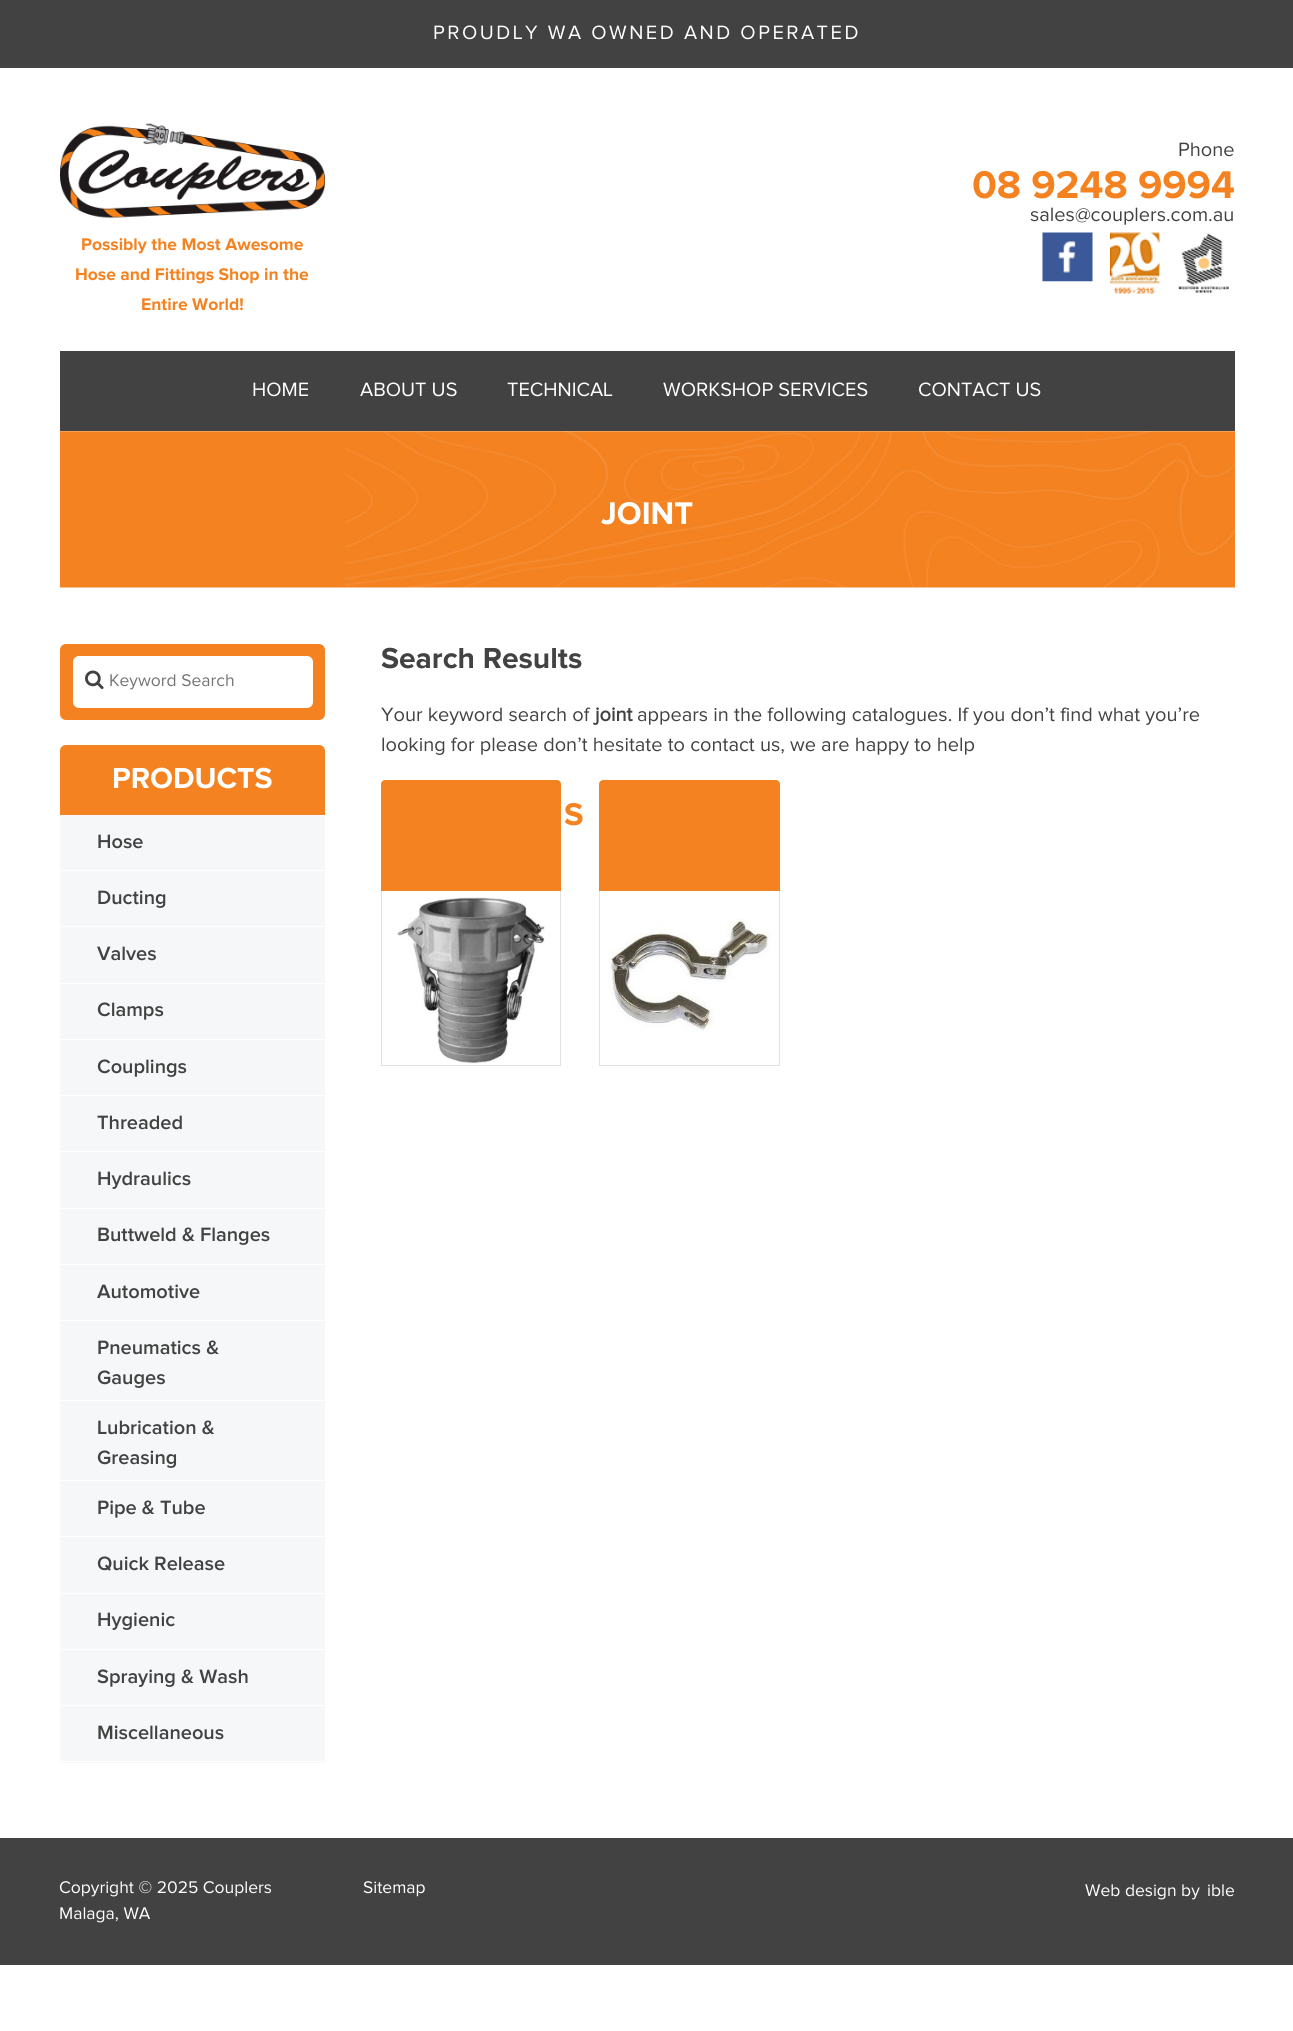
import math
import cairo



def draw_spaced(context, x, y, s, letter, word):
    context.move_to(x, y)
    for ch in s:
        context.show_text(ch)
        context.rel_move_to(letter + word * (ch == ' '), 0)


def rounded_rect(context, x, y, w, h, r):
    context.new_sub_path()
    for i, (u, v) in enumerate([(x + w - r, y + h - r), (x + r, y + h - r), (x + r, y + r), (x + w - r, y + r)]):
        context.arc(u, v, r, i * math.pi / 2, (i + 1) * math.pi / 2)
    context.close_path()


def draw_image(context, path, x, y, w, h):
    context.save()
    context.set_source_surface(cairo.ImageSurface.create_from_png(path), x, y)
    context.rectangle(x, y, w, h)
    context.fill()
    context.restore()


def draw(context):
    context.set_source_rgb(1, 1, 1)
    context.paint()
    context.set_source_rgb(66 / 255, 66 / 255, 66 / 255)
    context.rectangle(0, 0, 1293, 68)
    context.fill()
    draw_image(context, "images/1.png", 1042, 232, 51, 50)
    draw_image(context, "images/2.png", 1110, 232, 50, 62)
    draw_image(context, "images/3.png", 1178, 233, 51, 61)
    draw_image(context, "images/4.png", 60, 123, 265, 95)
    context.rectangle(60, 351, 1175, 80)
    context.fill()
    draw_image(context, "images/5.png", 60, 431, 1175, 157)
    context.set_source_rgb(245 / 255, 130 / 255, 32 / 255)
    rounded_rect(context, 60, 644, 265, 76, 6)
    context.fill()
    context.set_source_rgb(1, 1, 1)
    rounded_rect(context, 73, 656, 240, 52, 6)
    context.fill()
    draw_image(context, "images/6.png", 85, 670, 19, 20)
    context.set_source_rgb(245 / 255, 130 / 255, 32 / 255)
    context.new_path()
    context.move_to(66, 745)
    context.line_to(319, 745)
    context.curve_to(322.5, 745, 325, 747.5, 325, 751)
    context.line_to(325, 815)
    context.line_to(60, 815)
    context.line_to(60, 751)
    context.curve_to(60, 747.5, 62.5, 745, 66, 745)
    context.close_path()
    context.fill()
    context.set_source_rgb(245 / 255, 247 / 255, 248 / 255)
    context.rectangle(60, 815, 265, 55)
    context.fill()
    context.rectangle(60, 871, 265, 112)
    context.fill()
    context.set_source_rgb(1, 1, 1)
    context.rectangle(60, 926, 265, 1)
    context.fill()
    context.set_source_rgb(245 / 255, 247 / 255, 248 / 255)
    context.rectangle(60, 984, 265, 55)
    context.fill()
    context.rectangle(60, 1040, 265, 55)
    context.fill()
    context.rectangle(60, 1096, 265, 112)
    context.fill()
    context.set_source_rgb(1, 1, 1)
    context.rectangle(60, 1151, 265, 1)
    context.fill()
    context.set_source_rgb(245 / 255, 247 / 255, 248 / 255)
    context.rectangle(60, 1209, 265, 55)
    context.fill()
    context.rectangle(60, 1265, 265, 55)
    context.fill()
    context.rectangle(60, 1321, 265, 79)
    context.fill()
    context.rectangle(60, 1401, 265, 79)
    context.fill()
    context.rectangle(60, 1481, 265, 112)
    context.fill()
    context.set_source_rgb(1, 1, 1)
    context.rectangle(60, 1536, 265, 1)
    context.fill()
    context.set_source_rgb(245 / 255, 247 / 255, 248 / 255)
    context.rectangle(60, 1594, 265, 55)
    context.fill()
    context.rectangle(60, 1650, 265, 55)
    context.fill()
    context.rectangle(60, 1706, 265, 57)
    context.fill()
    context.set_source_rgb(1, 1, 1)
    context.rectangle(60, 1761, 265, 1)
    context.fill()
    context.set_source_rgb(245 / 255, 130 / 255, 32 / 255)
    context.new_path()
    context.move_to(385, 780)
    context.line_to(557, 780)
    context.curve_to(559, 780, 561, 782, 561, 784)
    context.line_to(561, 891)
    context.line_to(381, 891)
    context.line_to(381, 784)
    context.curve_to(381, 782, 383, 780, 385, 780)
    context.close_path()
    context.fill()
    context.set_source_rgb(226 / 255, 226 / 255, 226 / 255)
    context.rectangle(560, 891, 1, 175)
    context.fill()
    context.rectangle(381, 1065, 180, 1)
    context.fill()
    context.rectangle(381, 891, 1, 175)
    context.fill()
    draw_image(context, "images/7.png", 396, 897, 149, 167)
    context.set_source_rgb(245 / 255, 130 / 255, 32 / 255)
    context.new_path()
    context.move_to(603, 780)
    context.line_to(776, 780)
    context.curve_to(778, 780, 780, 782, 780, 784)
    context.line_to(780, 891)
    context.line_to(599, 891)
    context.line_to(599, 784)
    context.curve_to(599, 782, 601, 780, 603, 780)
    context.close_path()
    context.fill()
    context.set_source_rgb(226 / 255, 226 / 255, 226 / 255)
    context.rectangle(779, 891, 1, 175)
    context.fill()
    context.rectangle(599, 1065, 181, 1)
    context.fill()
    context.rectangle(599, 891, 1, 175)
    context.fill()
    draw_image(context, "images/8.png", 608, 918, 163, 114)
    context.set_source_rgb(66 / 255, 66 / 255, 66 / 255)
    context.rectangle(0, 1838, 1293, 127)
    context.fill()
    context.select_font_face("Proxima Nova")
    context.set_font_size(20)
    context.set_source_rgb(1, 1, 1)
    draw_spaced(context, 433, 39, "PROUDLY WA OWNED AND OPERATED", 2.5, 0)
    context.set_source_rgb(66 / 255, 66 / 255, 66 / 255)
    context.move_to(1178, 156)
    context.show_text("Phone")
    context.select_font_face("Proxima Nova", cairo.FontSlant.NORMAL, cairo.FontWeight.BOLD)
    context.set_font_size(40)
    context.set_source_rgb(245 / 255, 130 / 255, 32 / 255)
    context.move_to(972, 198)
    context.show_text("08 9248 9994")
    context.select_font_face("Proxima Nova")
    context.set_font_size(20)
    context.set_source_rgb(66 / 255, 66 / 255, 66 / 255)
    context.move_to(1030, 221)
    context.show_text("sales@couplers.com.au")
    context.select_font_face("Proxima Nova", cairo.FontSlant.NORMAL, cairo.FontWeight.BOLD)
    context.set_font_size(17.5)
    context.set_source_rgb(245 / 255, 130 / 255, 32 / 255)
    context.move_to(81, 250)
    context.show_text("Possibly the Most Awesome")
    context.move_to(75, 280)
    context.show_text("Hose and Fittings Shop in the")
    context.move_to(141, 310)
    context.show_text("Entire World!")
    context.select_font_face("Proxima Nova")
    context.set_font_size(20)
    context.set_source_rgb(1, 1, 1)
    context.move_to(252, 396)
    context.show_text("HOME")
    context.move_to(360, 396)
    context.show_text("ABOUT US")
    context.move_to(507, 396)
    context.show_text("TECHNICAL")
    context.move_to(663, 396)
    context.show_text("WORKSHOP SERVICES")
    context.move_to(918, 396)
    context.show_text("CONTACT US")
    context.select_font_face("Proxima Nova", cairo.FontSlant.NORMAL, cairo.FontWeight.BOLD)
    context.set_font_size(32.5)
    context.move_to(601, 524)
    context.show_text("JOINT")
    context.select_font_face("Proxima Nova")
    context.set_font_size(17.5)
    context.set_source_rgb(117 / 255, 117 / 255, 117 / 255)
    context.move_to(109, 686)
    context.show_text("Keyword Search")
    context.select_font_face("Proxima Nova", cairo.FontSlant.NORMAL, cairo.FontWeight.BOLD)
    context.set_font_size(30)
    context.set_source_rgb(1, 1, 1)
    context.move_to(112, 788)
    context.show_text("PRODUCTS")
    context.select_font_face("Proxima Nova SemiBold")
    context.set_font_size(20)
    context.set_source_rgb(66 / 255, 66 / 255, 66 / 255)
    context.move_to(97, 848)
    context.show_text("Hose")
    context.move_to(97, 904)
    context.show_text("Ducting")
    context.move_to(97, 960)
    context.show_text("Valves")
    context.move_to(97, 1016)
    context.show_text("Clamps")
    context.move_to(97, 1073)
    context.show_text("Couplings")
    context.move_to(97, 1129)
    context.show_text("Threaded")
    context.move_to(97, 1185)
    context.show_text("Hydraulics")
    context.move_to(97, 1241)
    context.show_text("Buttweld & Flanges")
    context.move_to(97, 1298)
    context.show_text("Automotive")
    context.move_to(97, 1354)
    context.show_text("Pneumatics &")
    context.move_to(97, 1384)
    context.show_text("Gauges")
    context.move_to(97, 1434)
    context.show_text("Lubrication &")
    context.move_to(97, 1464)
    context.show_text("Greasing")
    context.move_to(97, 1514)
    context.show_text("Pipe & Tube")
    context.move_to(97, 1570)
    context.show_text("Quick Release")
    context.move_to(97, 1626)
    context.show_text("Hygienic")
    context.move_to(97, 1683)
    context.show_text("Spraying & Wash")
    context.move_to(97, 1739)
    context.show_text("Miscellaneous")
    context.select_font_face("Proxima Nova", cairo.FontSlant.NORMAL, cairo.FontWeight.BOLD)
    context.set_font_size(30)
    context.move_to(381, 668)
    context.show_text("Search Results")
    context.select_font_face("Proxima Nova")
    context.set_font_size(20)
    context.move_to(381, 721)
    context.show_text("Your keyword search of")
    context.select_font_face("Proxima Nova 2", cairo.FontSlant.NORMAL, cairo.FontWeight.BOLD)
    context.move_to(595, 721)
    context.show_text("joint")
    context.select_font_face("Proxima Nova")
    context.move_to(637, 721)
    context.show_text("appears in the following catalogues. If you don’t find what you’re")
    context.move_to(381, 751)
    context.show_text("looking for please don’t hesitate to contact us, we are happy to help")
    context.select_font_face("Proxima Nova", cairo.FontSlant.NORMAL, cairo.FontWeight.BOLD)
    context.set_font_size(32.5)
    context.set_source_rgb(245 / 255, 130 / 255, 32 / 255)
    context.move_to(564, 825)
    context.show_text("S")
    context.select_font_face("Proxima Nova")
    context.set_font_size(17.5)
    context.set_source_rgb(1, 1, 1)
    context.move_to(59, 1893)
    context.show_text("Copyright © 2025 Couplers")
    context.move_to(59, 1919)
    context.show_text("Malaga, WA")
    context.move_to(363, 1893)
    context.show_text("Sitemap")
    context.move_to(1085, 1896)
    context.show_text("Web design by")
    context.move_to(1207, 1896)
    context.show_text("ible")


surface = cairo.ImageSurface(cairo.Format.RGB24, 1293, 2031)
context = cairo.Context(surface)
options = cairo.FontOptions()
options.set_hint_metrics(cairo.HintMetrics.OFF)
options.set_hint_style(cairo.HintStyle.NONE)
context.set_font_options(options)
context.set_miter_limit(4)
draw(context)
surface.write_to_png("out.png")
